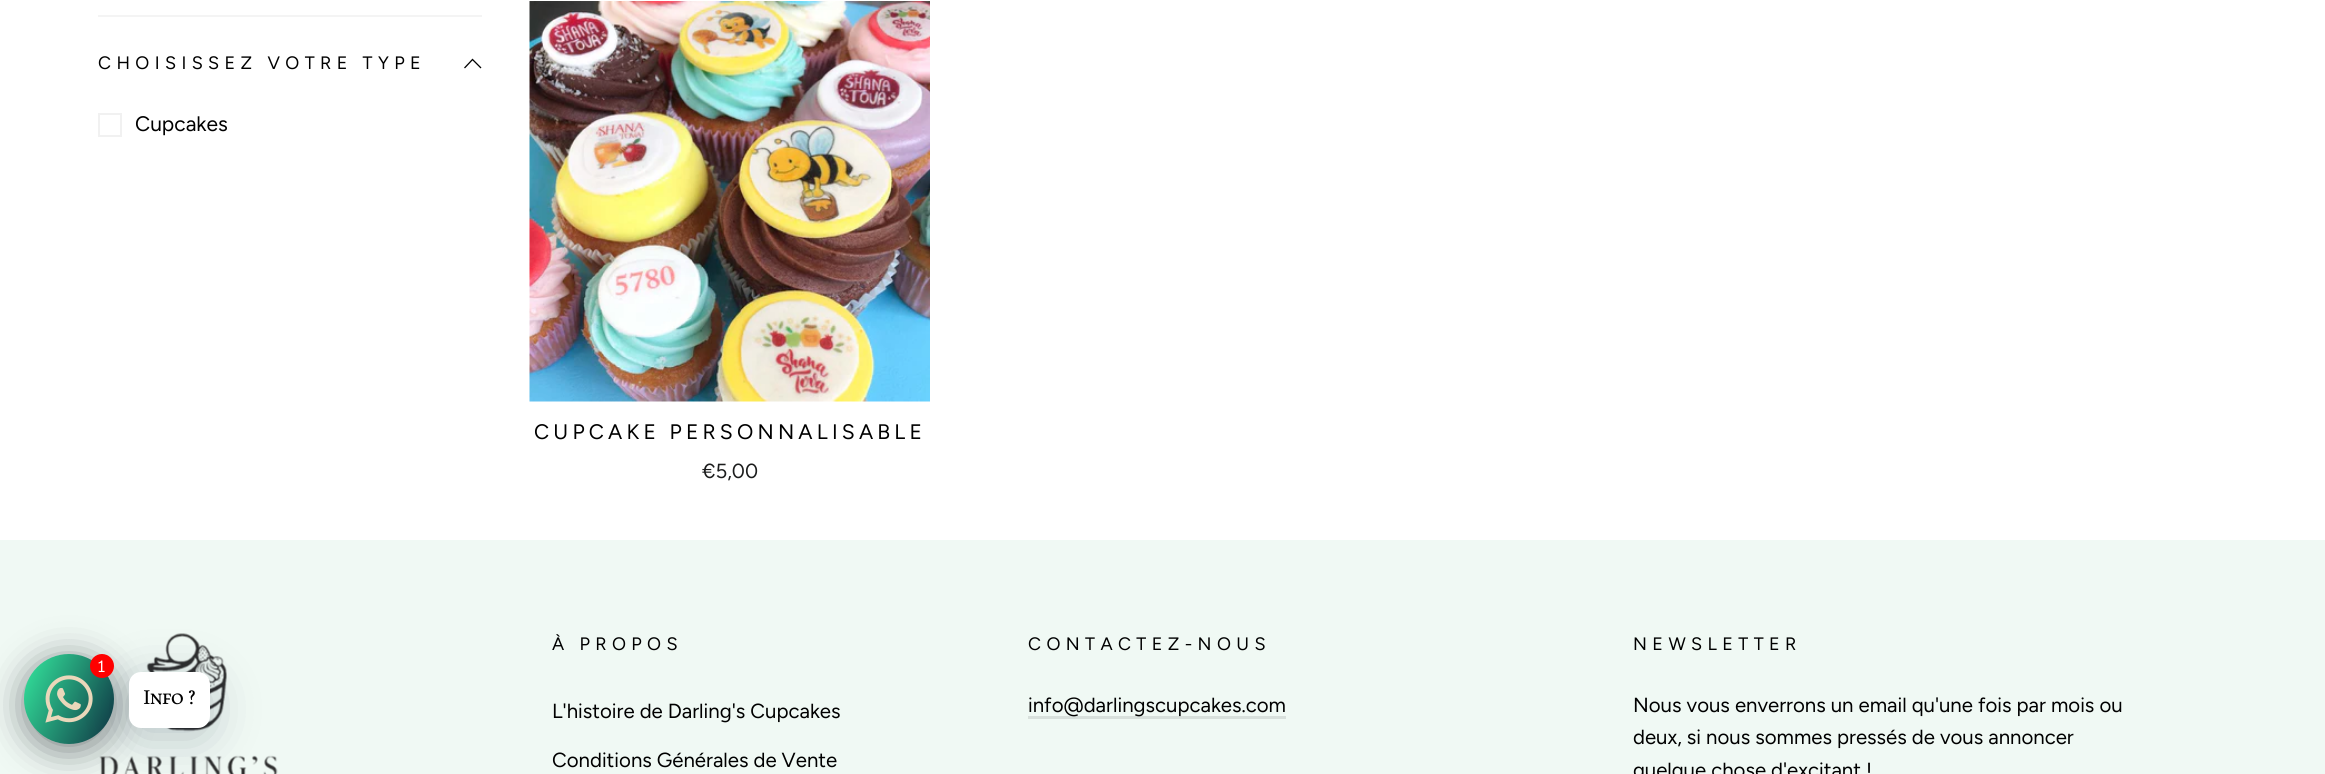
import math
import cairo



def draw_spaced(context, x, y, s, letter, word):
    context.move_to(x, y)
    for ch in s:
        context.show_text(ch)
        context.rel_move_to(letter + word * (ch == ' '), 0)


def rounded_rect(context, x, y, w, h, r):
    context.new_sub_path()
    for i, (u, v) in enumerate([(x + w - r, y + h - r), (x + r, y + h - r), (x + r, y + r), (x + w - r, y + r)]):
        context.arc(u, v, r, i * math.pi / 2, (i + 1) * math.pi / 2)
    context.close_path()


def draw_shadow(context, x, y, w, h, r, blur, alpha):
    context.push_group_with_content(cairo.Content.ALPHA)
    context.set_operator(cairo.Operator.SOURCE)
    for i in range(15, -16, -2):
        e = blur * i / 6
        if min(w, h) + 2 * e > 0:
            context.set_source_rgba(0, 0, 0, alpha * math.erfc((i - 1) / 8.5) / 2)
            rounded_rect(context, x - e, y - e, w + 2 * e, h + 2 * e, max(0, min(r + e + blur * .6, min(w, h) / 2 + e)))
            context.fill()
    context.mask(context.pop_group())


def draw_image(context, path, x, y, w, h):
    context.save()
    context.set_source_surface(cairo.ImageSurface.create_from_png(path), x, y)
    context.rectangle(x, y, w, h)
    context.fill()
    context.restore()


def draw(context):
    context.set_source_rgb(1, 1, 1)
    context.paint()
    context.set_source_rgb(244 / 255, 244 / 255, 244 / 255)
    context.rectangle(98, 15, 384, 2)
    context.fill()
    context.new_path()
    context.move_to(464.5, 68)
    context.line_to(472.5, 59.5)
    context.line_to(481, 68)
    context.set_source_rgb(0, 0, 0)
    context.set_line_width(1.3)
    context.stroke()
    context.rectangle(99, 114, 22, 22)
    context.set_source_rgb(241 / 255, 241 / 255, 241 / 255)
    context.set_line_width(2)
    context.stroke()
    draw_image(context, "images/1.png", 529, 1, 401, 401)
    context.set_source_rgb(240 / 255, 249 / 255, 244 / 255)
    context.rectangle(0, 540, 2325, 234)
    context.fill()
    draw_image(context, "images/2.png", 99, 633, 179, 141)
    context.set_source_rgb(216 / 255, 224 / 255, 220 / 255)
    context.rectangle(1028, 716, 258, 3)
    context.fill()
    context.set_source_rgb(2 / 255, 6 / 255, 16 / 255)
    draw_shadow(context, 24, 660, 90, 90, 45, 18, 0.5)
    gradient = cairo.LinearGradient(15, 674, 123, 724)
    gradient.add_color_stop_rgba(0, 52 / 255, 232 / 255, 158 / 255, 1)
    gradient.add_color_stop_rgba(1, 15 / 255, 52 / 255, 67 / 255, 1)
    context.set_source(gradient)
    context.arc(69, 699, 45, 0, 2 * math.pi)
    context.fill()
    context.set_source_rgb(0, 18 / 255, 46 / 255)
    draw_shadow(context, 129, 681, 81, 56, 12, 24, 0.24)
    draw_image(context, "images/3.png", 45, 675, 48, 48)
    context.set_source_rgb(1, 0, 0)
    context.arc(102, 666, 12, 0, 2 * math.pi)
    context.fill()
    context.set_source_rgb(1, 1, 1)
    rounded_rect(context, 129, 672, 81, 56, 12)
    context.fill()
    context.select_font_face("Figtree")
    context.set_font_size(18)
    context.set_source_rgb(0, 0, 0)
    draw_spaced(context, 98, 69, "CHOISISSEZ VOTRE TYPE", 5.4, 0)
    context.set_font_size(21)
    context.move_to(135, 131)
    context.show_text("Cupcakes")
    draw_spaced(context, 534, 439, "CUPCAKE PERSONNALISABLE", 4.2, 0)
    context.set_font_size(20.4)
    context.set_source_rgb(28 / 255, 29 / 255, 29 / 255)
    context.move_to(702, 478)
    context.show_text("€5,00")
    context.set_font_size(18)
    context.set_source_rgb(0, 0, 0)
    draw_spaced(context, 552, 650, "À PROPOS", 5.4, 0)
    context.set_font_size(20.4)
    context.move_to(552, 718)
    context.show_text("L'histoire de Darling's Cupcakes")
    context.move_to(552, 767)
    context.show_text("Conditions Générales de Vente")
    context.set_font_size(18)
    draw_spaced(context, 1028, 650, "CONTACTEZ-NOUS", 5.4, 0)
    context.set_font_size(20.4)
    context.move_to(1028, 712)
    context.show_text("info@darlingscupcakes.com")
    context.set_font_size(18)
    draw_spaced(context, 1633, 650, "NEWSLETTER", 5.4, 0)
    context.set_font_size(20.4)
    context.move_to(1633, 712)
    context.show_text("Nous vous enverrons un email qu'une fois par mois ou")
    context.move_to(1633, 744)
    context.show_text("deux, si nous sommes pressés de vous annoncer")
    context.move_to(1633, 777)
    context.show_text("quelque chose d'excitant !")
    context.select_font_face("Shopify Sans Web")
    context.set_font_size(16)
    context.set_source_rgb(1, 1, 1)
    context.move_to(98, 672)
    context.show_text("1")
    context.select_font_face("Cormorant SC", cairo.FontSlant.NORMAL, cairo.FontWeight.BOLD)
    context.set_font_size(21)
    context.set_source_rgb(0, 0, 0)
    context.move_to(143, 704)
    context.show_text("Info ?")


surface = cairo.ImageSurface(cairo.Format.RGB24, 2325, 774)
context = cairo.Context(surface)
options = cairo.FontOptions()
options.set_hint_metrics(cairo.HintMetrics.OFF)
options.set_hint_style(cairo.HintStyle.NONE)
context.set_font_options(options)
context.set_miter_limit(4)
draw(context)
surface.write_to_png("out.png")
